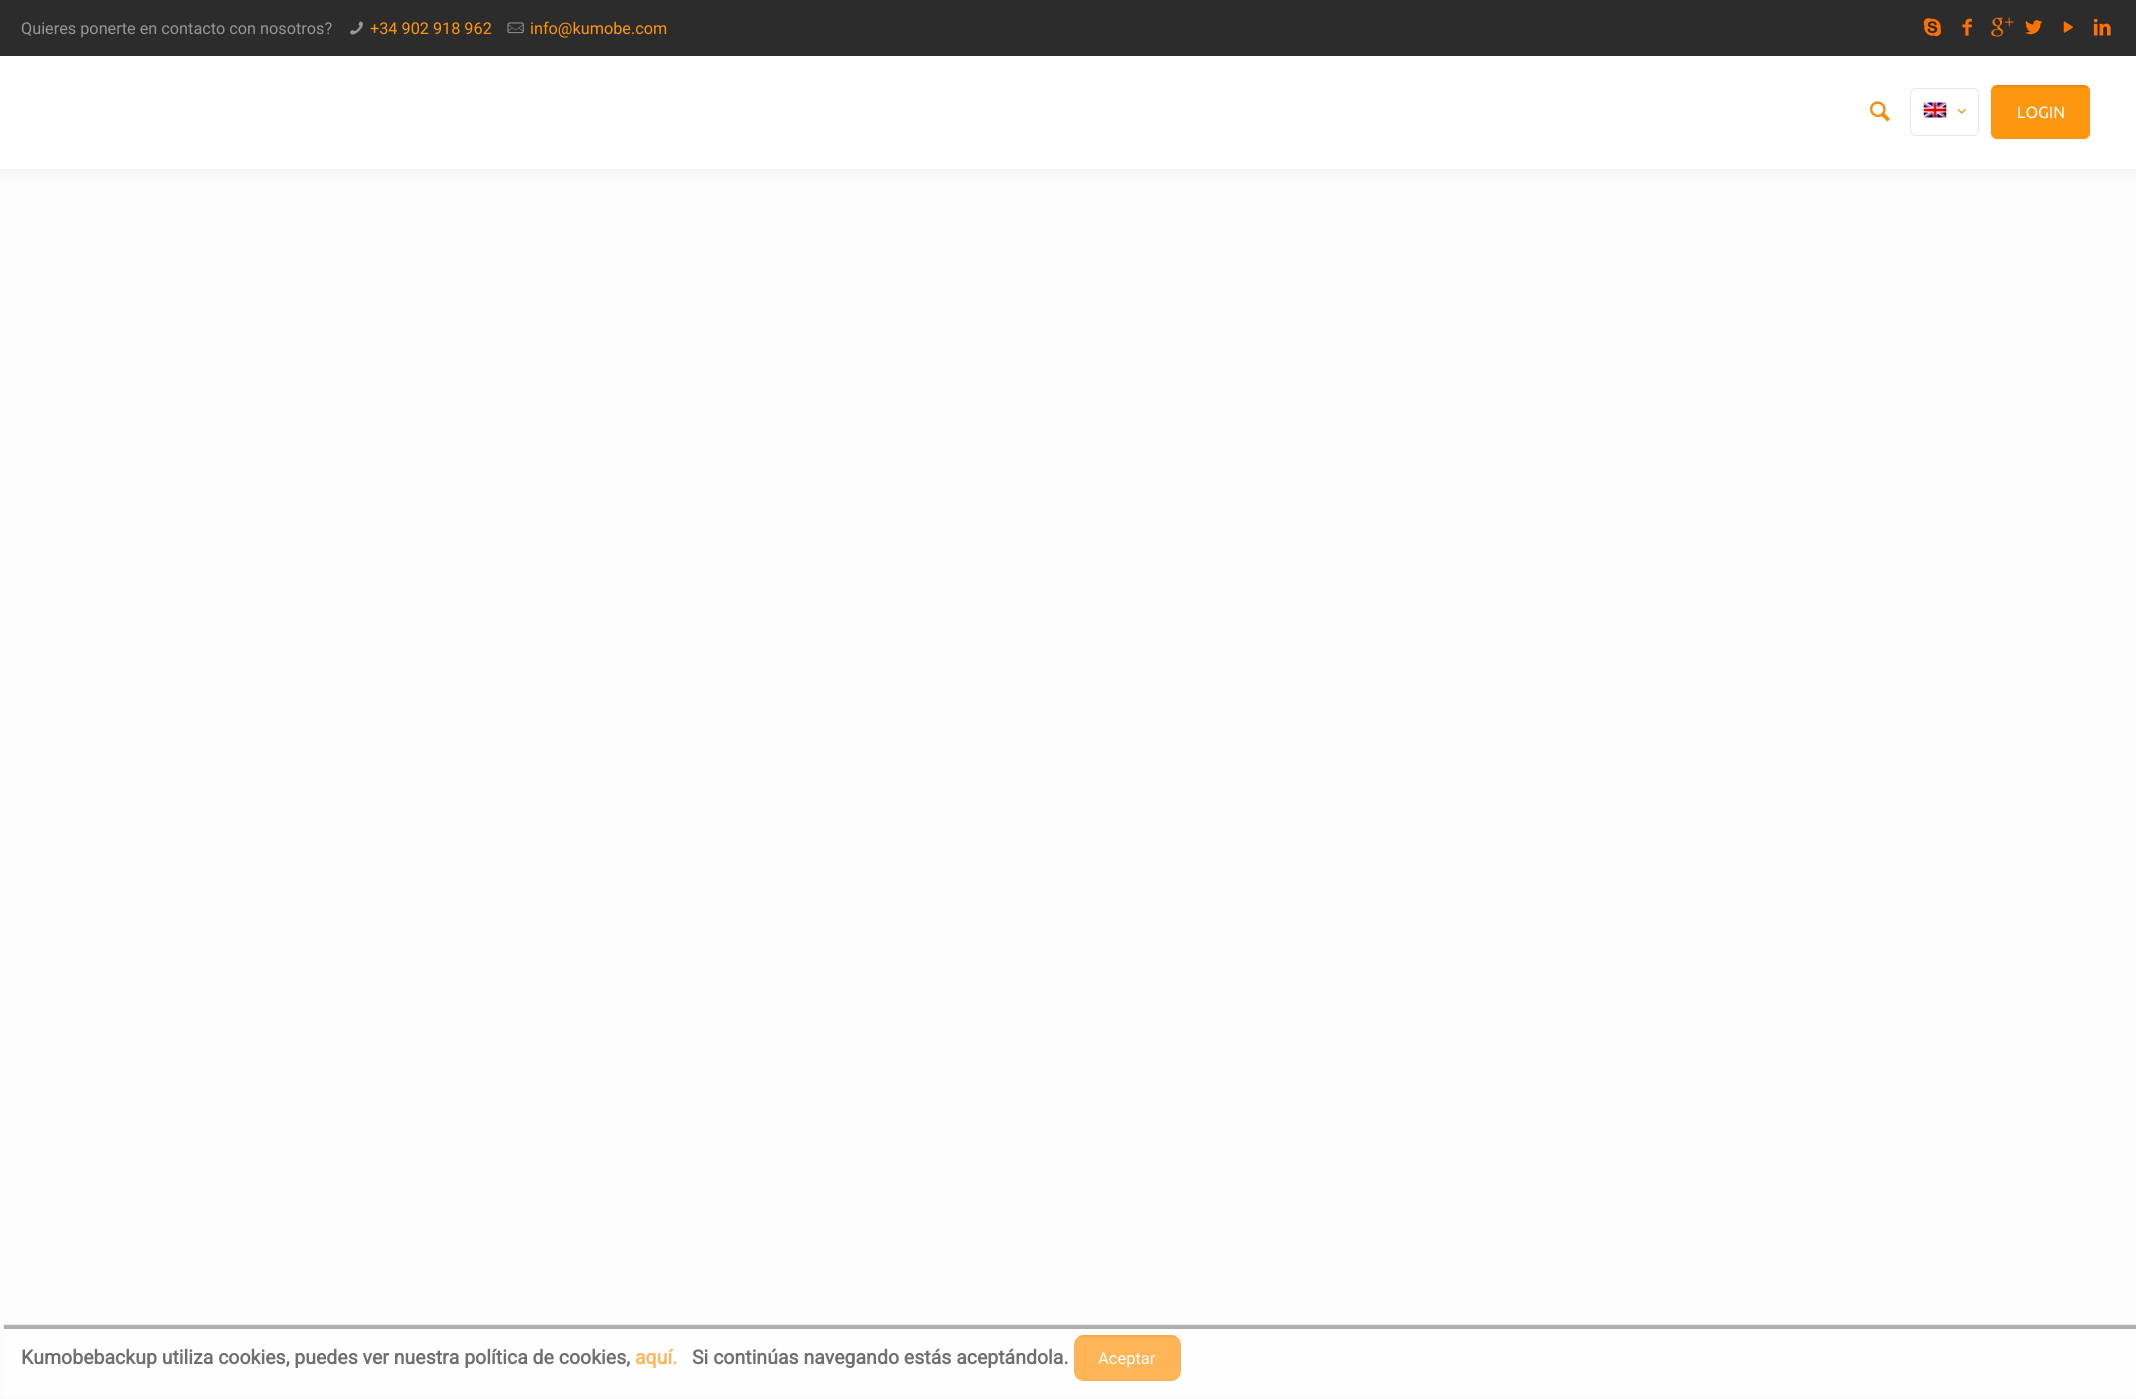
import math
import cairo



def rounded_rect(context, x, y, w, h, r):
    context.new_sub_path()
    for i, (u, v) in enumerate([(x + w - r, y + h - r), (x + r, y + h - r), (x + r, y + r), (x + w - r, y + r)]):
        context.arc(u, v, r, i * math.pi / 2, (i + 1) * math.pi / 2)
    context.close_path()


def draw_shadow(context, x, y, w, h, r, blur, alpha):
    context.push_group_with_content(cairo.Content.ALPHA)
    context.set_operator(cairo.Operator.SOURCE)
    for i in range(15, -16, -2):
        e = blur * i / 6
        if min(w, h) + 2 * e > 0:
            context.set_source_rgba(0, 0, 0, alpha * math.erfc((i - 1) / 8.5) / 2)
            rounded_rect(context, x - e, y - e, w + 2 * e, h + 2 * e, max(0, min(r + e + blur * .6, min(w, h) / 2 + e)))
            context.fill()
    context.mask(context.pop_group())


def draw_image(context, path, x, y, w, h):
    context.save()
    context.set_source_surface(cairo.ImageSurface.create_from_png(path), x, y)
    context.rectangle(x, y, w, h)
    context.fill()
    context.restore()


def draw(context):
    context.set_source_rgb(252 / 255, 252 / 255, 252 / 255)
    context.paint()
    context.set_source_rgb(0, 0, 0)
    draw_shadow(context, 0, 0, 2136, 169, 0, 9.5, 0.06)
    context.set_source_rgb(44 / 255, 44 / 255, 44 / 255)
    context.rectangle(0, 0, 2136, 56)
    context.fill()
    draw_image(context, "images/1.png", 350, 21, 13, 14)
    draw_image(context, "images/2.png", 507, 22, 17, 12)
    draw_image(context, "images/3.png", 1923, 18, 18, 19)
    draw_image(context, "images/4.png", 1962, 18, 10, 18)
    draw_image(context, "images/5.png", 1991, 17, 23, 20)
    draw_image(context, "images/6.png", 2025, 20, 18, 15)
    draw_image(context, "images/7.png", 2063, 21, 11, 12)
    draw_image(context, "images/8.png", 2093, 18, 18, 18)
    context.set_source_rgb(1, 1, 1)
    context.rectangle(0, 56, 2136, 113)
    context.fill()
    draw_image(context, "images/9.png", 1870, 101, 20, 21)
    rounded_rect(context, 1910.5, 88.5, 68, 47, 5.5)
    context.set_source_rgb(232 / 255, 232 / 255, 232 / 255)
    context.set_line_width(1)
    context.stroke()
    draw_image(context, "images/10.png", 1923, 102, 24, 16)
    draw_image(context, "images/11.png", 1957, 109, 9, 5)
    context.set_source_rgb(1, 150 / 255, 16 / 255)
    rounded_rect(context, 1991, 85, 99, 54, 6)
    context.fill()
    draw_image(context, "images/12.png", 1993, 85, 96, 3)
    context.rectangle(1991.5, 85.5, 98, 53)
    context.set_source_rgba(0, 0, 0, 0.03)
    context.stroke()
    context.set_source_rgb(111 / 255, 111 / 255, 111 / 255)
    draw_shadow(context, 4, 1325, 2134, 71, 0, 0.5, 0.56)
    context.set_source_rgb(254 / 255, 254 / 255, 254 / 255)
    context.rectangle(3, 1329, 2133, 68)
    context.fill()
    context.set_source_rgb(254 / 255, 181 / 255, 87 / 255)
    rounded_rect(context, 1074, 1335, 107, 46, 10)
    context.fill()
    context.set_source_rgba(0, 0, 0, 0.04)
    context.rectangle(1078, 1335, 99, 3)
    context.fill()
    context.rectangle(1074.5, 1335.5, 106, 45)
    context.set_source_rgba(76 / 255, 76 / 255, 76 / 255, 0.03)
    context.stroke()
    context.select_font_face("Roboto")
    context.set_font_size(16.25)
    context.set_source_rgb(150 / 255, 150 / 255, 150 / 255)
    context.move_to(21, 34)
    context.show_text("Quieres ponerte en contacto con nosotros?")
    context.set_source_rgb(1, 150 / 255, 16 / 255)
    context.move_to(370, 34)
    context.show_text("+34 902 918 962")
    context.move_to(530, 34)
    context.show_text("info@kumobe.com")
    context.select_font_face("Ubuntu")
    context.set_source_rgb(1, 1, 1)
    context.move_to(2017, 118)
    context.show_text("LOGIN")
    context.select_font_face("Roboto", cairo.FontSlant.NORMAL, cairo.FontWeight.BOLD)
    context.set_font_size(19.5)
    context.set_source_rgb(111 / 255, 111 / 255, 111 / 255)
    context.move_to(21, 1364)
    context.show_text("Kumobebackup utiliza cookies, puedes ver nuestra política de cookies,")
    context.set_source_rgb(254 / 255, 181 / 255, 87 / 255)
    context.move_to(635, 1364)
    context.show_text("aquí.")
    context.set_source_rgb(111 / 255, 111 / 255, 111 / 255)
    context.move_to(692, 1364)
    context.show_text("Si continúas navegando estás aceptándola.")
    context.select_font_face("Roboto")
    context.set_font_size(16.5)
    context.set_source_rgb(1, 1, 1)
    context.move_to(1098, 1364)
    context.show_text("Aceptar")


surface = cairo.ImageSurface(cairo.Format.RGB24, 2136, 1399)
context = cairo.Context(surface)
options = cairo.FontOptions()
options.set_hint_metrics(cairo.HintMetrics.OFF)
options.set_hint_style(cairo.HintStyle.NONE)
context.set_font_options(options)
context.set_miter_limit(4)
draw(context)
surface.write_to_png("out.png")
